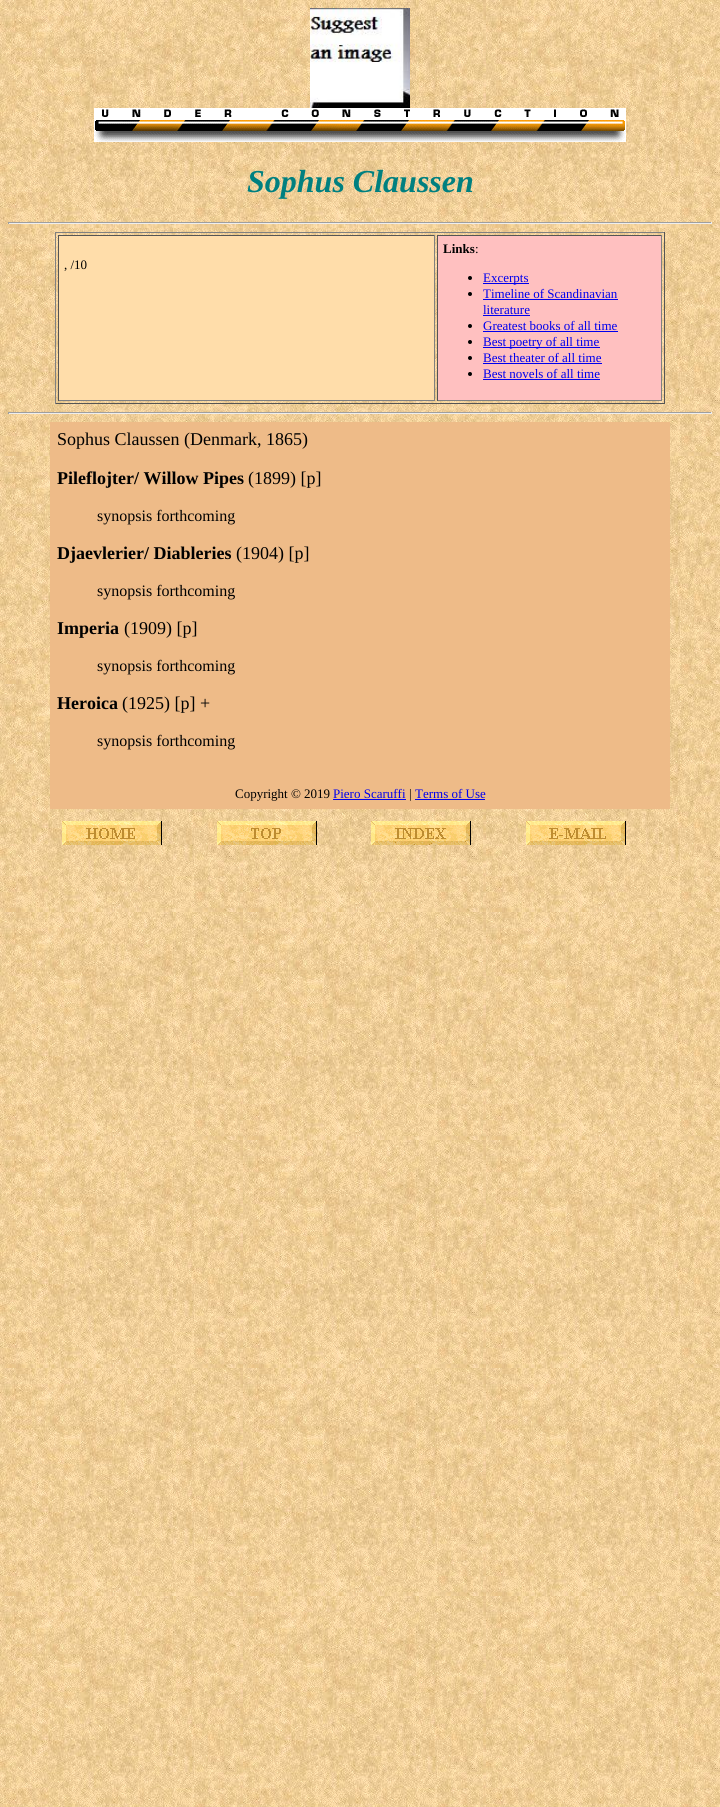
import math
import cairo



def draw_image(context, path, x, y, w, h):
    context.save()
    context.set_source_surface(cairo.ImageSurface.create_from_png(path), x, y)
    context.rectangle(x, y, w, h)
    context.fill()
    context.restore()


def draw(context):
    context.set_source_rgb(1, 1, 1)
    context.paint()
    draw_image(context, "images/1.png", 0, 0, 720, 1807)
    draw_image(context, "images/2.png", 310, 8, 100, 100)
    draw_image(context, "images/3.png", 94, 108, 532, 34)
    context.set_source_rgb(159 / 255, 159 / 255, 159 / 255)
    context.rectangle(8, 222, 704, 1)
    context.fill()
    context.set_source_rgb(238 / 255, 238 / 255, 238 / 255)
    context.rectangle(711, 222, 1, 2)
    context.fill()
    context.rectangle(8, 223, 704, 1)
    context.fill()
    context.set_source_rgb(159 / 255, 159 / 255, 159 / 255)
    context.rectangle(8, 222, 1, 2)
    context.fill()
    context.set_source_rgb(128 / 255, 128 / 255, 128 / 255)
    context.rectangle(55, 232, 610, 1)
    context.fill()
    context.set_source_rgb(85 / 255, 85 / 255, 85 / 255)
    context.rectangle(664, 232, 1, 172)
    context.fill()
    context.rectangle(55, 403, 610, 1)
    context.fill()
    context.set_source_rgb(128 / 255, 128 / 255, 128 / 255)
    context.rectangle(55, 232, 1, 172)
    context.fill()
    context.set_source_rgb(1, 221 / 255, 170 / 255)
    context.rectangle(59, 236, 375, 164)
    context.fill()
    context.set_source_rgb(85 / 255, 85 / 255, 85 / 255)
    context.rectangle(58, 235, 377, 1)
    context.fill()
    context.set_source_rgb(128 / 255, 128 / 255, 128 / 255)
    context.rectangle(434, 235, 1, 166)
    context.fill()
    context.rectangle(58, 400, 377, 1)
    context.fill()
    context.set_source_rgb(85 / 255, 85 / 255, 85 / 255)
    context.rectangle(58, 235, 1, 166)
    context.fill()
    context.set_source_rgb(1, 192 / 255, 192 / 255)
    context.rectangle(438, 236, 223, 164)
    context.fill()
    context.set_source_rgb(85 / 255, 85 / 255, 85 / 255)
    context.rectangle(437, 235, 225, 1)
    context.fill()
    context.set_source_rgb(128 / 255, 128 / 255, 128 / 255)
    context.rectangle(661, 235, 1, 166)
    context.fill()
    context.rectangle(437, 400, 225, 1)
    context.fill()
    context.set_source_rgb(85 / 255, 85 / 255, 85 / 255)
    context.rectangle(437, 235, 1, 166)
    context.fill()
    context.set_source_rgb(0, 0, 0)
    context.arc(470, 278, 2, 0, 2 * math.pi)
    context.fill()
    context.set_source_rgb(0, 0, 238 / 255)
    context.rectangle(483, 283, 46, 1)
    context.fill()
    context.set_source_rgb(0, 0, 0)
    context.arc(470, 294, 2, 0, 2 * math.pi)
    context.fill()
    context.set_source_rgb(0, 0, 238 / 255)
    context.rectangle(483, 299, 135, 1)
    context.fill()
    context.rectangle(483, 315, 47, 1)
    context.fill()
    context.set_source_rgb(0, 0, 0)
    context.arc(470, 326, 2, 0, 2 * math.pi)
    context.fill()
    context.set_source_rgb(0, 0, 238 / 255)
    context.rectangle(483, 331, 135, 1)
    context.fill()
    context.set_source_rgb(0, 0, 0)
    context.arc(470, 342, 2, 0, 2 * math.pi)
    context.fill()
    context.set_source_rgb(0, 0, 238 / 255)
    context.rectangle(483, 347, 117, 1)
    context.fill()
    context.set_source_rgb(0, 0, 0)
    context.arc(470, 358, 2, 0, 2 * math.pi)
    context.fill()
    context.set_source_rgb(0, 0, 238 / 255)
    context.rectangle(483, 363, 119, 1)
    context.fill()
    context.set_source_rgb(0, 0, 0)
    context.arc(470, 374, 2, 0, 2 * math.pi)
    context.fill()
    context.set_source_rgb(0, 0, 238 / 255)
    context.rectangle(483, 379, 117, 1)
    context.fill()
    context.set_source_rgb(159 / 255, 159 / 255, 159 / 255)
    context.rectangle(8, 412, 704, 1)
    context.fill()
    context.set_source_rgb(238 / 255, 238 / 255, 238 / 255)
    context.rectangle(711, 412, 1, 2)
    context.fill()
    context.rectangle(8, 413, 704, 1)
    context.fill()
    context.set_source_rgb(159 / 255, 159 / 255, 159 / 255)
    context.rectangle(8, 412, 1, 2)
    context.fill()
    context.set_source_rgb(238 / 255, 187 / 255, 136 / 255)
    context.rectangle(50, 422, 620, 387)
    context.fill()
    context.set_source_rgb(0, 0, 238 / 255)
    context.rectangle(333, 799, 73, 1)
    context.fill()
    context.rectangle(415, 799, 70, 1)
    context.fill()
    draw_image(context, "images/4.png", 62, 821, 100, 24)
    draw_image(context, "images/5.png", 217, 821, 100, 24)
    draw_image(context, "images/6.png", 371, 821, 100, 24)
    draw_image(context, "images/7.png", 526, 821, 100, 24)
    context.select_font_face("Liberation Serif", cairo.FontSlant.ITALIC, cairo.FontWeight.BOLD)
    context.set_font_size(32)
    context.set_source_rgb(0, 128 / 255, 128 / 255)
    context.move_to(247, 192)
    context.show_text("Sophus Claussen")
    context.select_font_face("Liberation Serif")
    context.set_font_size(13)
    context.set_source_rgb(0, 0, 0)
    context.move_to(64, 269)
    context.show_text(", /10")
    context.select_font_face("Liberation Serif", cairo.FontSlant.NORMAL, cairo.FontWeight.BOLD)
    context.move_to(443, 253)
    context.show_text("Links")
    context.select_font_face("Liberation Serif")
    context.move_to(475, 253)
    context.show_text(":")
    context.set_source_rgb(0, 0, 238 / 255)
    context.move_to(483, 282)
    context.show_text("Excerpts")
    context.move_to(483, 298)
    context.show_text("Timeline of Scandinavian")
    context.move_to(483, 314)
    context.show_text("literature")
    context.move_to(483, 330)
    context.show_text("Greatest books of all time")
    context.move_to(483, 346)
    context.show_text("Best poetry of all time")
    context.move_to(483, 362)
    context.show_text("Best theater of all time")
    context.move_to(483, 378)
    context.show_text("Best novels of all time")
    context.set_font_size(18)
    context.set_source_rgb(0, 0, 0)
    context.move_to(57, 445)
    context.show_text("Sophus Claussen (Denmark, 1865)")
    context.select_font_face("Liberation Serif", cairo.FontSlant.NORMAL, cairo.FontWeight.BOLD)
    context.move_to(57, 484)
    context.show_text("Pileflojter/ Willow Pipes")
    context.select_font_face("Liberation Serif")
    context.move_to(248, 484)
    context.show_text("(1899) [p]")
    context.set_font_size(16)
    context.move_to(97, 521)
    context.show_text("synopsis forthcoming")
    context.select_font_face("Liberation Serif", cairo.FontSlant.NORMAL, cairo.FontWeight.BOLD)
    context.set_font_size(18)
    context.move_to(57, 559)
    context.show_text("Djaevlerier/ Diableries")
    context.select_font_face("Liberation Serif")
    context.move_to(236, 559)
    context.show_text("(1904) [p]")
    context.set_font_size(16)
    context.move_to(97, 596)
    context.show_text("synopsis forthcoming")
    context.select_font_face("Liberation Serif", cairo.FontSlant.NORMAL, cairo.FontWeight.BOLD)
    context.set_font_size(18)
    context.move_to(57, 634)
    context.show_text("Imperia")
    context.select_font_face("Liberation Serif")
    context.move_to(124, 634)
    context.show_text("(1909) [p]")
    context.set_font_size(16)
    context.move_to(97, 671)
    context.show_text("synopsis forthcoming")
    context.select_font_face("Liberation Serif", cairo.FontSlant.NORMAL, cairo.FontWeight.BOLD)
    context.set_font_size(18)
    context.move_to(57, 709)
    context.show_text("Heroica")
    context.select_font_face("Liberation Serif")
    context.move_to(122, 709)
    context.show_text("(1925) [p] +")
    context.set_font_size(16)
    context.move_to(97, 746)
    context.show_text("synopsis forthcoming")
    context.set_font_size(13)
    context.move_to(235, 798)
    context.show_text("Copyright © 2019")
    context.set_source_rgb(0, 0, 238 / 255)
    context.move_to(333, 798)
    context.show_text("Piero Scaruffi")
    context.set_source_rgb(0, 0, 0)
    context.move_to(409, 798)
    context.show_text("|")
    context.set_source_rgb(0, 0, 238 / 255)
    context.move_to(415, 798)
    context.show_text("Terms of Use")


surface = cairo.ImageSurface(cairo.Format.RGB24, 720, 1807)
context = cairo.Context(surface)
options = cairo.FontOptions()
options.set_hint_metrics(cairo.HintMetrics.OFF)
options.set_hint_style(cairo.HintStyle.NONE)
context.set_font_options(options)
context.set_miter_limit(4)
draw(context)
surface.write_to_png("out.png")
